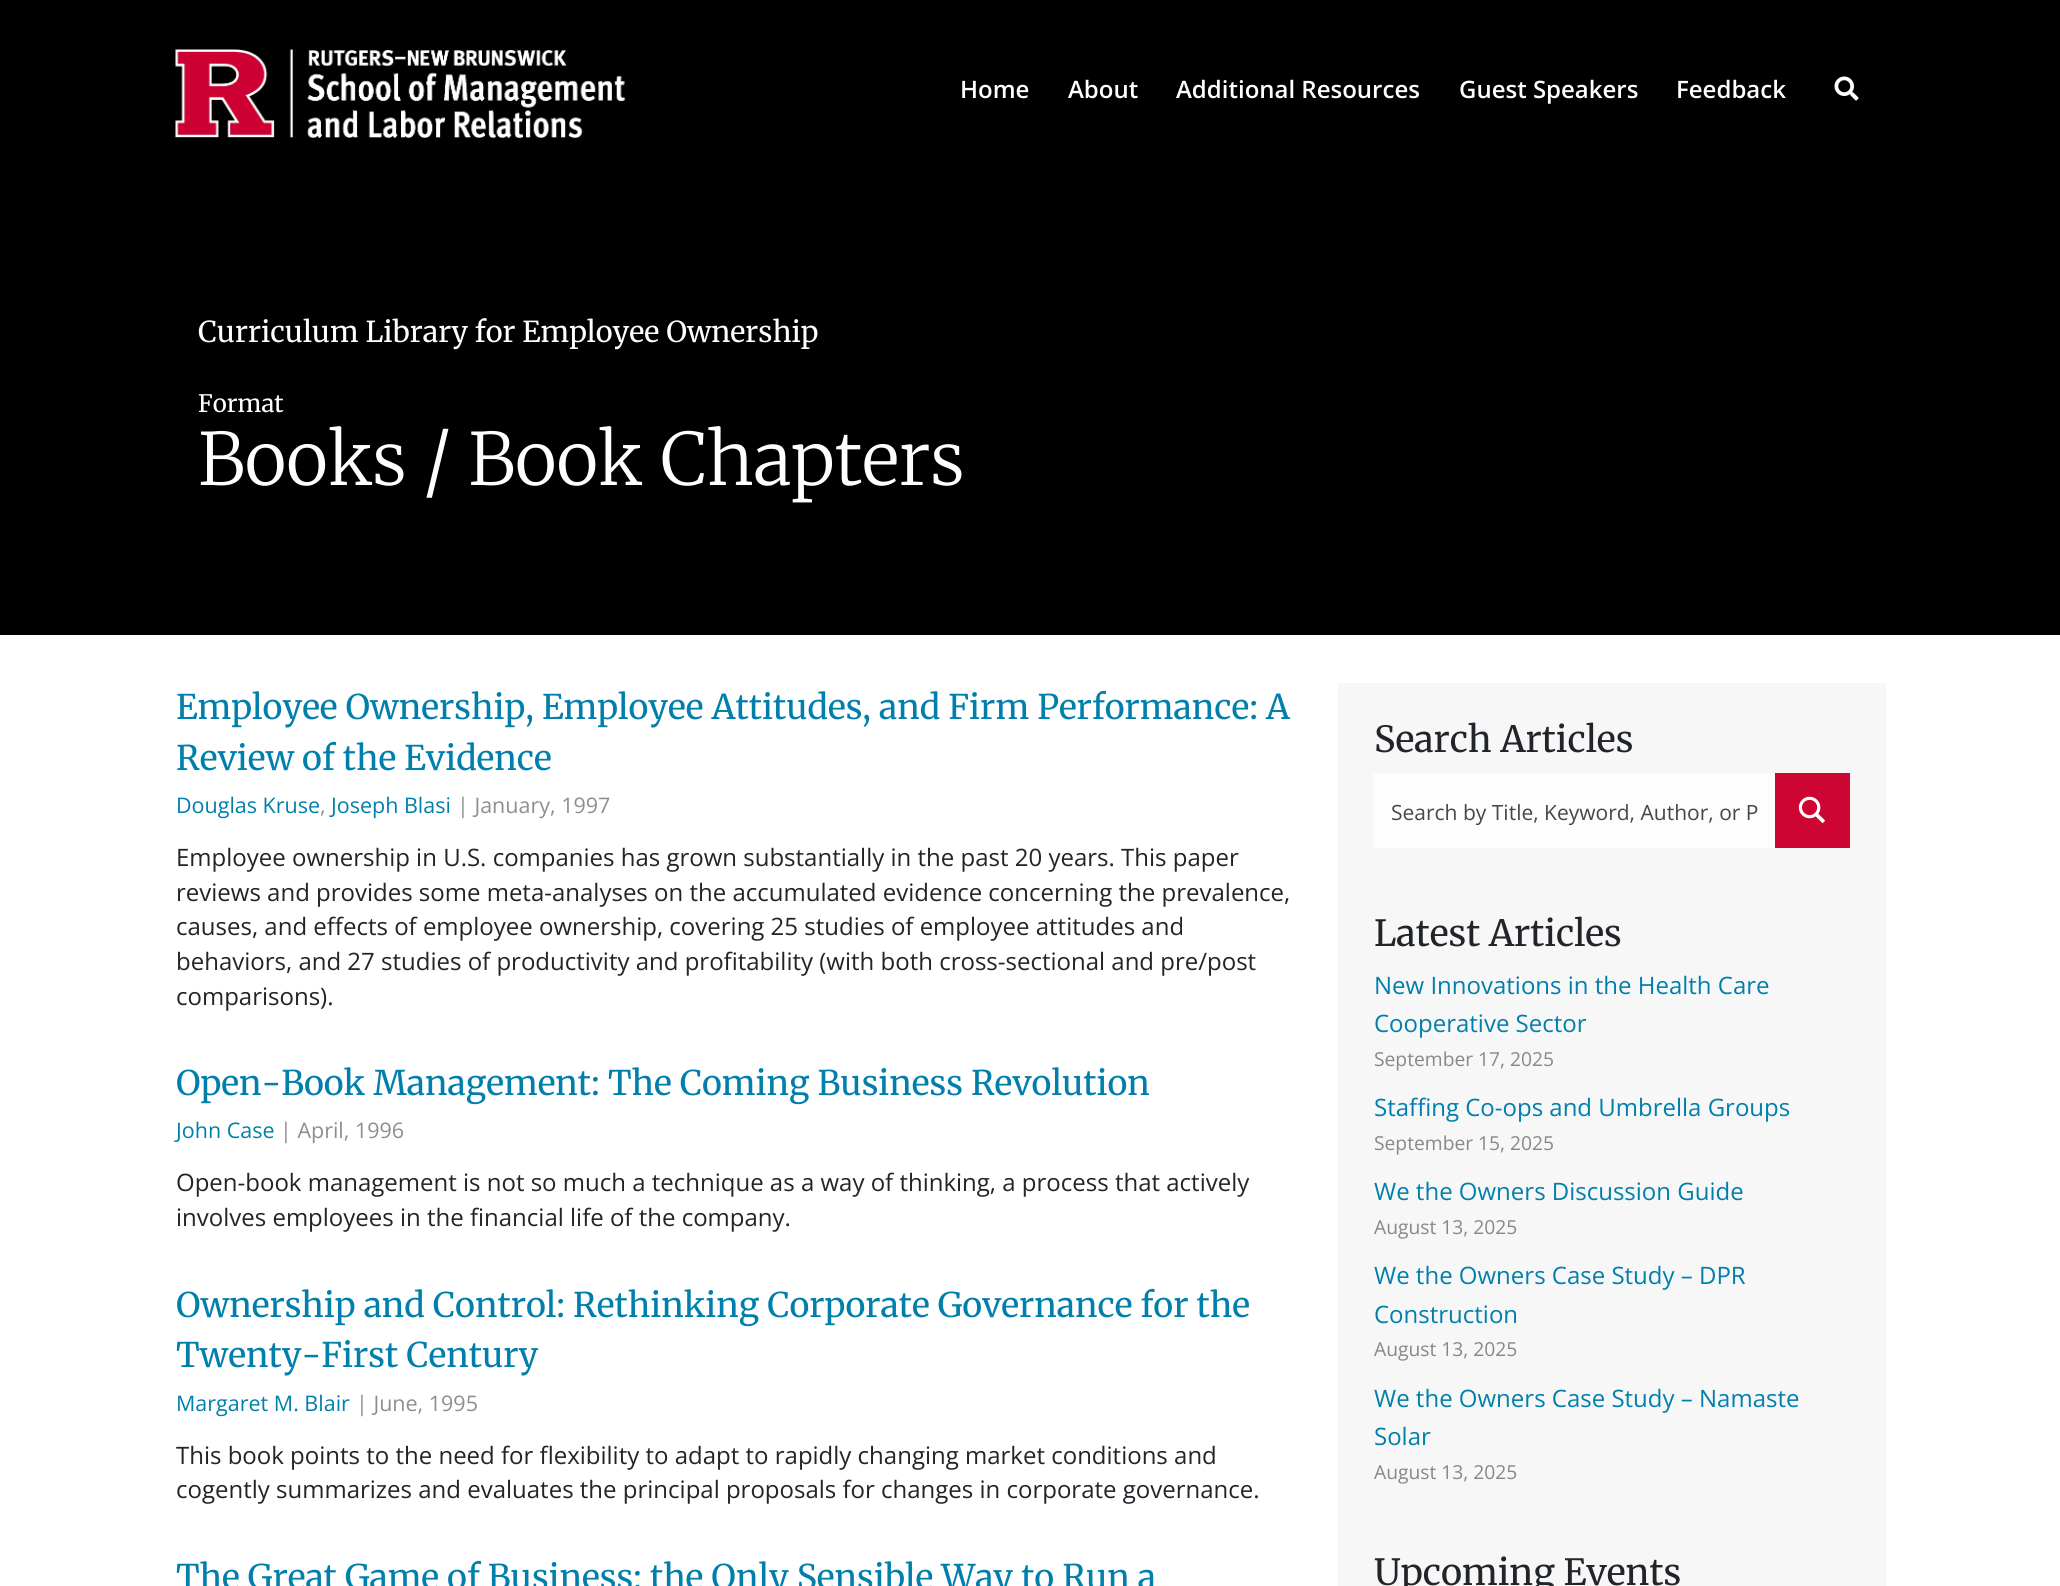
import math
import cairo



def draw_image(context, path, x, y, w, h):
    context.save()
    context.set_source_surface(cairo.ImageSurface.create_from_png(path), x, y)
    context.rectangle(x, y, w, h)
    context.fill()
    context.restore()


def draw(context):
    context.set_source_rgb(1, 1, 1)
    context.paint()
    context.set_source_rgb(0, 0, 0)
    context.rectangle(0, 0, 2060, 635)
    context.fill()
    draw_image(context, "images/1.png", 175, 49, 451, 89)
    draw_image(context, "images/2.png", 1834, 76, 25, 25)
    context.set_source_rgb(247 / 255, 247 / 255, 247 / 255)
    context.rectangle(1338, 683, 548, 903)
    context.fill()
    context.set_source_rgb(253 / 255, 253 / 255, 253 / 255)
    context.rectangle(1374, 773, 401, 75)
    context.fill()
    context.set_source_rgb(205 / 255, 5 / 255, 51 / 255)
    context.rectangle(1775, 773, 75, 75)
    context.fill()
    draw_image(context, "images/3.png", 1798, 796, 28, 28)
    context.select_font_face("Open Sans SemiBold")
    context.set_font_size(24)
    context.set_source_rgb(1, 1, 1)
    context.move_to(960, 98)
    context.show_text("Home")
    context.move_to(1068, 98)
    context.show_text("About")
    context.move_to(1176, 98)
    context.show_text("Additional Resources")
    context.move_to(1459, 98)
    context.show_text("Guest Speakers")
    context.move_to(1676, 98)
    context.show_text("Feedback")
    context.select_font_face("Merriweather")
    context.set_font_size(28.8)
    context.move_to(198, 342)
    context.show_text("Curriculum Library for Employee Ownership")
    context.set_font_size(24)
    context.move_to(198, 412)
    context.show_text("Format")
    context.select_font_face("Merriweather Light")
    context.set_font_size(72)
    context.move_to(198, 485)
    context.show_text("Books / Book Chapters")
    context.select_font_face("Merriweather")
    context.set_font_size(33.95)
    context.set_source_rgb(0, 127 / 255, 172 / 255)
    context.move_to(176, 719)
    context.show_text("Employee Ownership, Employee Attitudes, and Firm Performance: A")
    context.move_to(176, 770)
    context.show_text("Review of the Evidence")
    context.select_font_face("Open Sans")
    context.set_font_size(21.5)
    context.move_to(176, 813)
    context.show_text("Douglas Kruse")
    context.set_source_rgb(142 / 255, 142 / 255, 142 / 255)
    context.move_to(320, 813)
    context.show_text(",")
    context.set_source_rgb(0, 127 / 255, 172 / 255)
    context.move_to(331, 813)
    context.show_text("Joseph Blasi")
    context.set_source_rgb(142 / 255, 142 / 255, 142 / 255)
    context.move_to(457, 813)
    context.show_text("| January, 1997")
    context.set_font_size(24)
    context.set_source_rgb(33 / 255, 37 / 255, 41 / 255)
    context.move_to(176, 866)
    context.show_text("Employee ownership in U.S. companies has grown substantially in the past 20 years. This paper")
    context.move_to(176, 901)
    context.show_text("reviews and provides some meta-analyses on the accumulated evidence concerning the prevalence,")
    context.move_to(176, 935)
    context.show_text("causes, and effects of employee ownership, covering 25 studies of employee attitudes and")
    context.move_to(176, 970)
    context.show_text("behaviors, and 27 studies of productivity and profitability (with both cross-sectional and pre/post")
    context.move_to(176, 1005)
    context.show_text("comparisons).")
    context.select_font_face("Merriweather")
    context.set_font_size(33.95)
    context.set_source_rgb(0, 127 / 255, 172 / 255)
    context.move_to(176, 1095)
    context.show_text("Open-Book Management: The Coming Business Revolution")
    context.select_font_face("Open Sans")
    context.set_font_size(21.5)
    context.move_to(176, 1138)
    context.show_text("John Case")
    context.set_source_rgb(142 / 255, 142 / 255, 142 / 255)
    context.move_to(280, 1138)
    context.show_text("| April, 1996")
    context.set_font_size(24)
    context.set_source_rgb(33 / 255, 37 / 255, 41 / 255)
    context.move_to(176, 1191)
    context.show_text("Open-book management is not so much a technique as a way of thinking, a process that actively")
    context.move_to(176, 1226)
    context.show_text("involves employees in the financial life of the company.")
    context.select_font_face("Merriweather")
    context.set_font_size(33.95)
    context.set_source_rgb(0, 127 / 255, 172 / 255)
    context.move_to(176, 1317)
    context.show_text("Ownership and Control: Rethinking Corporate Governance for the")
    context.move_to(176, 1367)
    context.show_text("Twenty-First Century")
    context.select_font_face("Open Sans")
    context.set_font_size(21.5)
    context.move_to(176, 1411)
    context.show_text("Margaret M. Blair")
    context.set_source_rgb(142 / 255, 142 / 255, 142 / 255)
    context.move_to(356, 1411)
    context.show_text("| June, 1995")
    context.set_font_size(24)
    context.set_source_rgb(33 / 255, 37 / 255, 41 / 255)
    context.move_to(176, 1464)
    context.show_text("This book points to the need for flexibility to adapt to rapidly changing market conditions and")
    context.move_to(176, 1498)
    context.show_text("cogently summarizes and evaluates the principal proposals for changes in corporate governance.")
    context.select_font_face("Merriweather")
    context.set_font_size(33.95)
    context.set_source_rgb(0, 127 / 255, 172 / 255)
    context.move_to(176, 1589)
    context.show_text("The Great Game of Business: the Only Sensible Way to Run a")
    context.set_font_size(36)
    context.set_source_rgb(33 / 255, 37 / 255, 41 / 255)
    context.move_to(1374, 752)
    context.show_text("Search Articles")
    context.select_font_face("Open Sans")
    context.set_font_size(21)
    context.set_source_rgb(71 / 255, 71 / 255, 71 / 255)
    context.move_to(1391, 820)
    context.show_text("Search by Title, Keyword, Author, or P")
    context.select_font_face("Merriweather")
    context.set_font_size(36)
    context.set_source_rgb(33 / 255, 37 / 255, 41 / 255)
    context.move_to(1374, 946)
    context.show_text("Latest Articles")
    context.select_font_face("Open Sans")
    context.set_font_size(24)
    context.set_source_rgb(0, 127 / 255, 172 / 255)
    context.move_to(1374, 994)
    context.show_text("New Innovations in the Health Care")
    context.move_to(1374, 1032)
    context.show_text("Cooperative Sector")
    context.set_font_size(19.25)
    context.set_source_rgb(136 / 255, 136 / 255, 136 / 255)
    context.move_to(1374, 1066)
    context.show_text("September 17, 2025")
    context.set_font_size(24)
    context.set_source_rgb(0, 127 / 255, 172 / 255)
    context.move_to(1374, 1116)
    context.show_text("Staffing Co-ops and Umbrella Groups")
    context.set_font_size(19.25)
    context.set_source_rgb(136 / 255, 136 / 255, 136 / 255)
    context.move_to(1374, 1150)
    context.show_text("September 15, 2025")
    context.set_font_size(24)
    context.set_source_rgb(0, 127 / 255, 172 / 255)
    context.move_to(1374, 1200)
    context.show_text("We the Owners Discussion Guide")
    context.set_font_size(19.25)
    context.set_source_rgb(136 / 255, 136 / 255, 136 / 255)
    context.move_to(1374, 1234)
    context.show_text("August 13, 2025")
    context.set_font_size(24)
    context.set_source_rgb(0, 127 / 255, 172 / 255)
    context.move_to(1374, 1284)
    context.show_text("We the Owners Case Study – DPR")
    context.move_to(1374, 1323)
    context.show_text("Construction")
    context.set_font_size(19.25)
    context.set_source_rgb(136 / 255, 136 / 255, 136 / 255)
    context.move_to(1374, 1356)
    context.show_text("August 13, 2025")
    context.set_font_size(24)
    context.set_source_rgb(0, 127 / 255, 172 / 255)
    context.move_to(1374, 1407)
    context.show_text("We the Owners Case Study – Namaste")
    context.move_to(1374, 1445)
    context.show_text("Solar")
    context.set_font_size(19.25)
    context.set_source_rgb(136 / 255, 136 / 255, 136 / 255)
    context.move_to(1374, 1479)
    context.show_text("August 13, 2025")
    context.select_font_face("Merriweather")
    context.set_font_size(36)
    context.set_source_rgb(33 / 255, 37 / 255, 41 / 255)
    context.move_to(1374, 1585)
    context.show_text("Upcoming Events")


surface = cairo.ImageSurface(cairo.Format.RGB24, 2060, 1586)
context = cairo.Context(surface)
options = cairo.FontOptions()
options.set_hint_metrics(cairo.HintMetrics.OFF)
options.set_hint_style(cairo.HintStyle.NONE)
context.set_font_options(options)
context.set_miter_limit(4)
draw(context)
surface.write_to_png("out.png")
